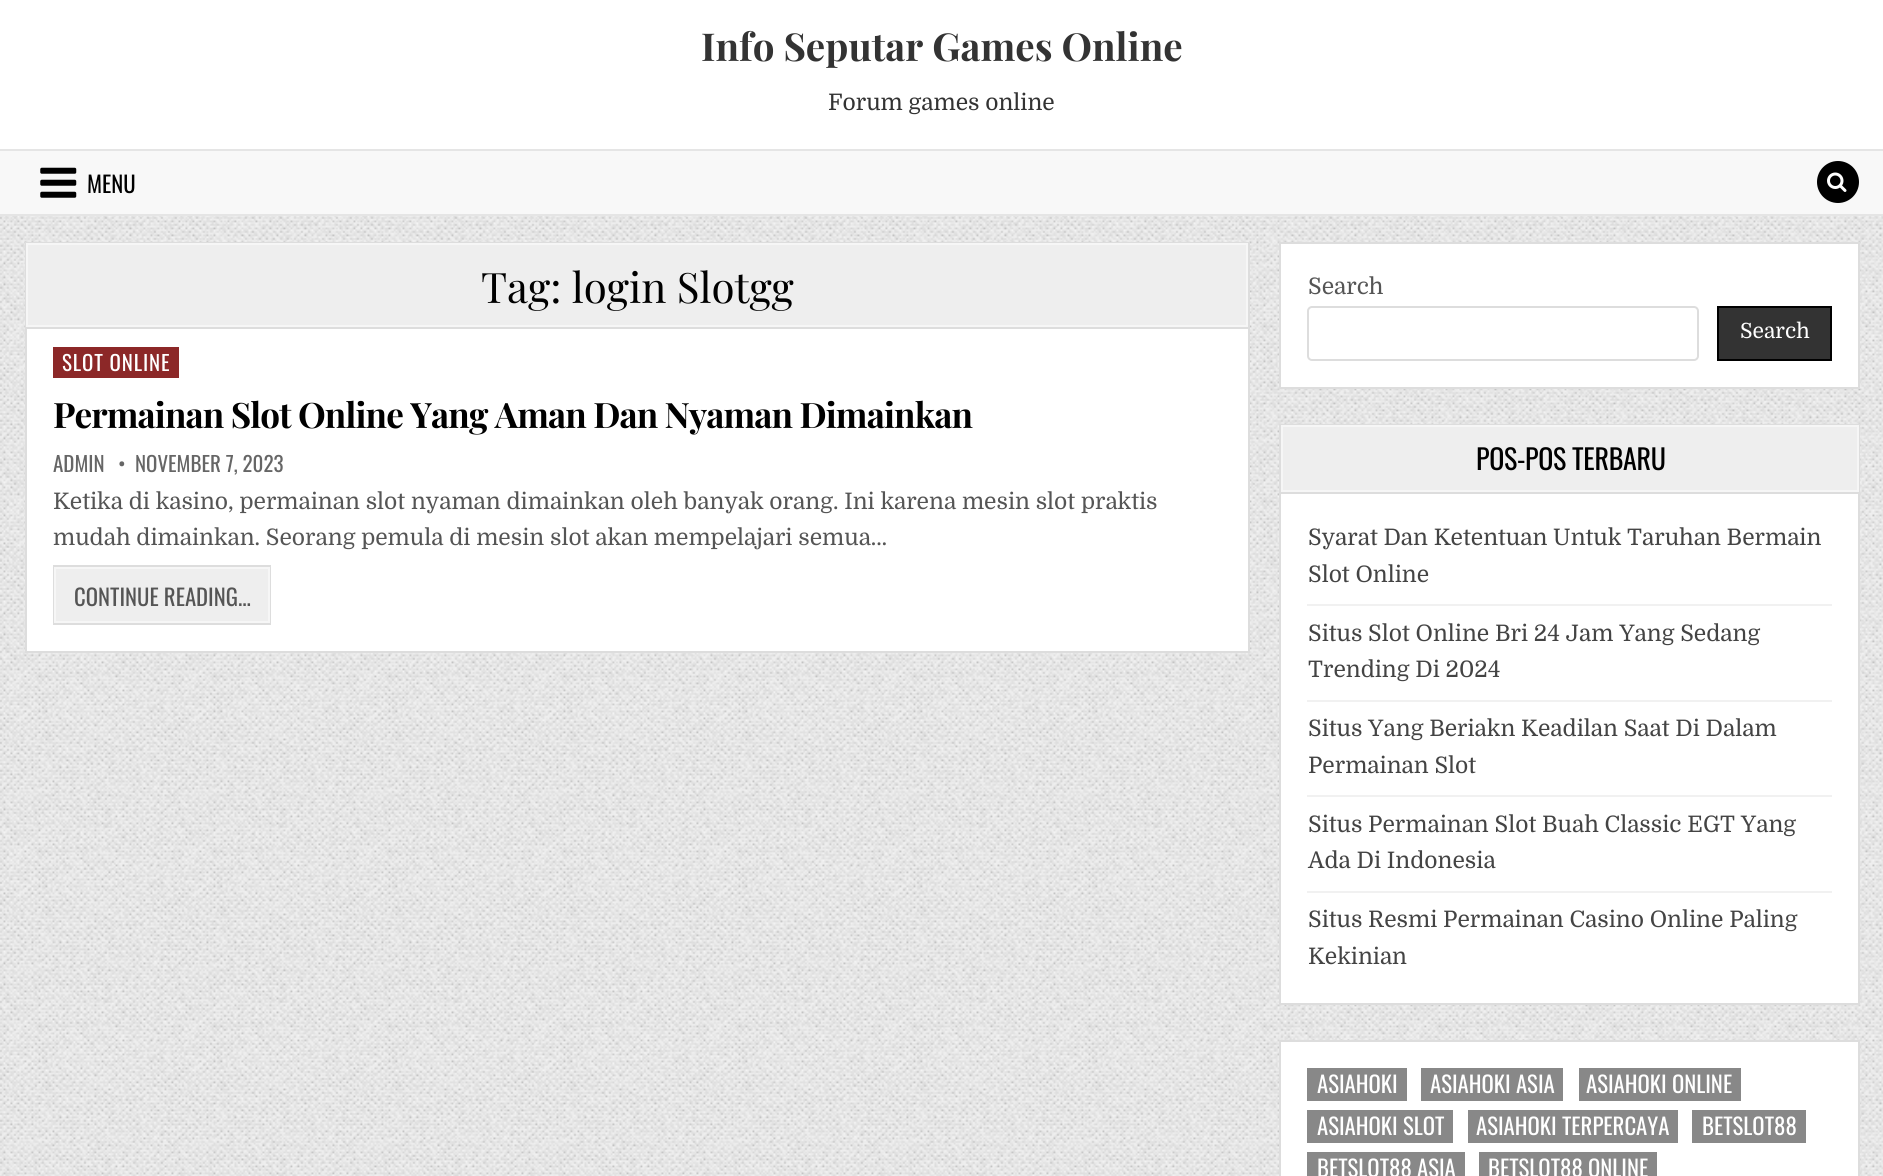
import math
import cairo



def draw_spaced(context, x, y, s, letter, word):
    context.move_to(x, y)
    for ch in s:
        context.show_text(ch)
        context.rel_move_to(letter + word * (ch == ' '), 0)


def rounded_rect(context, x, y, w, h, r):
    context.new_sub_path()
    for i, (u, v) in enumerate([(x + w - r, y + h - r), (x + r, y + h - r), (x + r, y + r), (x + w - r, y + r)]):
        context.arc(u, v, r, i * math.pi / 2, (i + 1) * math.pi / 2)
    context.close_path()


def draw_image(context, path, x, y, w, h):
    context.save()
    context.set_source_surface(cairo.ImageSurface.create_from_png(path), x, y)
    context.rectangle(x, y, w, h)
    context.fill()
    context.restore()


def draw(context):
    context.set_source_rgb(1, 1, 1)
    context.paint()
    draw_image(context, "images/1.png", 0, 216, 1883, 960)
    context.set_source_rgb(248 / 255, 248 / 255, 248 / 255)
    context.rectangle(0, 151, 1883, 63)
    context.fill()
    context.set_source_rgb(229 / 255, 229 / 255, 229 / 255)
    context.rectangle(0, 149, 1883, 2)
    context.fill()
    context.rectangle(0, 214, 1883, 2)
    context.fill()
    draw_image(context, "images/2.png", 40, 167, 37, 31)
    context.set_source_rgb(0, 0, 0)
    context.arc(1838, 182, 21, 0, 2 * math.pi)
    context.fill()
    draw_image(context, "images/3.png", 1827, 172, 20, 20)
    context.set_source_rgb(1, 1, 1)
    context.rectangle(27, 329, 1221, 322)
    context.fill()
    context.rectangle(26, 243, 1223, 409)
    context.set_source_rgb(221 / 255, 221 / 255, 221 / 255)
    context.stroke()
    context.rectangle(26, 327, 1222, 2)
    context.fill()
    context.set_source_rgb(238 / 255, 238 / 255, 238 / 255)
    context.rectangle(27, 244, 1220, 82)
    context.fill_preserve()
    context.set_source_rgb(246 / 255, 246 / 255, 246 / 255)
    context.stroke()
    context.set_source_rgb(140 / 255, 40 / 255, 40 / 255)
    context.rectangle(53, 347, 126, 31)
    context.fill()
    context.set_source_rgb(238 / 255, 238 / 255, 238 / 255)
    context.rectangle(56, 569, 212, 52)
    context.fill()
    context.rectangle(54, 566, 216, 58)
    context.set_source_rgb(221 / 255, 221 / 255, 221 / 255)
    context.stroke()
    context.rectangle(55, 568, 214, 54)
    context.set_source_rgb(246 / 255, 246 / 255, 246 / 255)
    context.stroke()
    context.set_source_rgb(1, 1, 1)
    context.rectangle(1280, 243, 579, 145)
    context.fill_preserve()
    context.set_source_rgb(221 / 255, 221 / 255, 221 / 255)
    context.stroke()
    rounded_rect(context, 1308, 307, 390, 53, 4)
    context.stroke()
    context.set_source_rgb(51 / 255, 51 / 255, 51 / 255)
    context.rectangle(1718, 307, 113, 53)
    context.fill_preserve()
    context.set_source_rgb(0, 0, 0)
    context.stroke()
    context.set_source_rgb(1, 1, 1)
    context.rectangle(1281, 494, 577, 509)
    context.fill()
    context.rectangle(1280, 425, 579, 579)
    context.set_source_rgb(221 / 255, 221 / 255, 221 / 255)
    context.stroke()
    context.rectangle(1281, 492, 578, 2)
    context.fill()
    context.set_source_rgb(238 / 255, 238 / 255, 238 / 255)
    context.rectangle(1282, 426, 576, 65)
    context.fill_preserve()
    context.set_source_rgb(246 / 255, 246 / 255, 246 / 255)
    context.stroke()
    context.set_source_rgb(241 / 255, 241 / 255, 241 / 255)
    context.rectangle(1307, 604, 525, 2)
    context.fill()
    context.rectangle(1307, 700, 525, 2)
    context.fill()
    context.rectangle(1307, 795, 525, 2)
    context.fill()
    context.rectangle(1307, 891, 525, 2)
    context.fill()
    context.set_source_rgb(1, 1, 1)
    context.rectangle(1280, 1041, 579, 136)
    context.fill_preserve()
    context.set_source_rgb(221 / 255, 221 / 255, 221 / 255)
    context.stroke()
    context.set_source_rgb(136 / 255, 136 / 255, 136 / 255)
    context.rectangle(1307, 1068, 100, 33)
    context.fill()
    context.rectangle(1421, 1068, 142, 33)
    context.fill()
    context.rectangle(1579, 1068, 162, 33)
    context.fill()
    context.rectangle(1307, 1110, 146, 33)
    context.fill()
    context.rectangle(1468, 1110, 210, 33)
    context.fill()
    context.rectangle(1692, 1110, 114, 33)
    context.fill()
    context.rectangle(1307, 1152, 158, 24)
    context.fill()
    context.rectangle(1479, 1152, 178, 24)
    context.fill()
    context.select_font_face("Playfair Display", cairo.FontSlant.NORMAL, cairo.FontWeight.BOLD)
    context.set_font_size(38.5)
    context.set_source_rgb(51 / 255, 51 / 255, 51 / 255)
    context.move_to(701, 61)
    context.show_text("Info Seputar Games Online")
    context.select_font_face("Domine")
    context.set_font_size(22.75)
    context.move_to(828, 110)
    context.show_text("Forum games online")
    context.select_font_face("Oswald")
    context.set_source_rgb(0, 0, 0)
    context.move_to(87, 193)
    context.show_text("MENU")
    context.select_font_face("Playfair Display")
    context.set_font_size(42)
    context.move_to(481, 303)
    context.show_text("Tag: login Slotgg")
    context.select_font_face("Oswald")
    context.set_font_size(21)
    context.set_source_rgb(1, 1, 1)
    draw_spaced(context, 62, 371, "SLOT ONLINE", 0.9, 0)
    context.select_font_face("Playfair Display", cairo.FontSlant.NORMAL, cairo.FontWeight.BOLD)
    context.set_font_size(35)
    context.set_source_rgb(0, 0, 0)
    draw_spaced(context, 53, 428, "Permainan Slot Online Yang Aman Dan Nyaman Dimainkan", -0.88, 0)
    context.select_font_face("Oswald")
    context.set_font_size(21)
    context.set_source_rgb(102 / 255, 102 / 255, 102 / 255)
    context.move_to(53, 472)
    context.show_text("ADMIN")
    context.move_to(118, 472)
    context.show_text("•")
    context.move_to(135, 472)
    context.show_text("NOVEMBER 7, 2023")
    context.select_font_face("Domine")
    context.set_font_size(22.75)
    context.set_source_rgb(85 / 255, 85 / 255, 85 / 255)
    context.move_to(53, 509)
    context.show_text("Ketika di kasino, permainan slot nyaman dimainkan oleh banyak orang. Ini karena mesin slot praktis")
    context.move_to(53, 545)
    context.show_text("mudah dimainkan. Seorang pemula di mesin slot akan mempelajari semua…")
    context.select_font_face("Oswald")
    context.move_to(74, 606)
    context.show_text("CONTINUE READING...")
    context.select_font_face("Domine")
    context.move_to(1308, 294)
    context.show_text("Search")
    context.set_font_size(21)
    context.set_source_rgb(1, 1, 1)
    context.move_to(1740, 338)
    context.show_text("Search")
    context.select_font_face("Oswald")
    context.set_font_size(28)
    context.set_source_rgb(0, 0, 0)
    draw_spaced(context, 1476, 470, "POS-POS TERBARU", -0.3, 0)
    context.select_font_face("Domine")
    context.set_font_size(22.75)
    context.set_source_rgb(68 / 255, 68 / 255, 68 / 255)
    context.move_to(1308, 545)
    context.show_text("Syarat Dan Ketentuan Untuk Taruhan Bermain")
    context.move_to(1308, 582)
    context.show_text("Slot Online")
    context.move_to(1308, 641)
    context.show_text("Situs Slot Online Bri 24 Jam Yang Sedang")
    context.move_to(1308, 677)
    context.show_text("Trending Di 2024")
    context.move_to(1308, 736)
    context.show_text("Situs Yang Beriakn Keadilan Saat Di Dalam")
    context.move_to(1308, 773)
    context.show_text("Permainan Slot")
    context.move_to(1308, 832)
    context.show_text("Situs Permainan Slot Buah Classic EGT Yang")
    context.move_to(1308, 868)
    context.show_text("Ada Di Indonesia")
    context.move_to(1308, 927)
    context.show_text("Situs Resmi Permainan Casino Online Paling")
    context.move_to(1308, 964)
    context.show_text("Kekinian")
    context.select_font_face("Oswald")
    context.set_source_rgb(1, 1, 1)
    context.move_to(1317, 1093)
    context.show_text("ASIAHOKI")
    context.move_to(1430, 1093)
    context.show_text("ASIAHOKI ASIA")
    context.move_to(1586, 1093)
    context.show_text("ASIAHOKI ONLINE")
    context.move_to(1317, 1135)
    context.show_text("ASIAHOKI SLOT")
    context.move_to(1476, 1135)
    context.show_text("ASIAHOKI TERPERCAYA")
    context.move_to(1702, 1135)
    context.show_text("BETSLOT88")
    context.move_to(1317, 1177)
    context.show_text("BETSLOT88 ASIA")
    context.move_to(1488, 1177)
    context.show_text("BETSLOT88 ONLINE")


surface = cairo.ImageSurface(cairo.Format.RGB24, 1883, 1176)
context = cairo.Context(surface)
options = cairo.FontOptions()
options.set_hint_metrics(cairo.HintMetrics.OFF)
options.set_hint_style(cairo.HintStyle.NONE)
context.set_font_options(options)
context.set_miter_limit(4)
draw(context)
surface.write_to_png("out.png")
